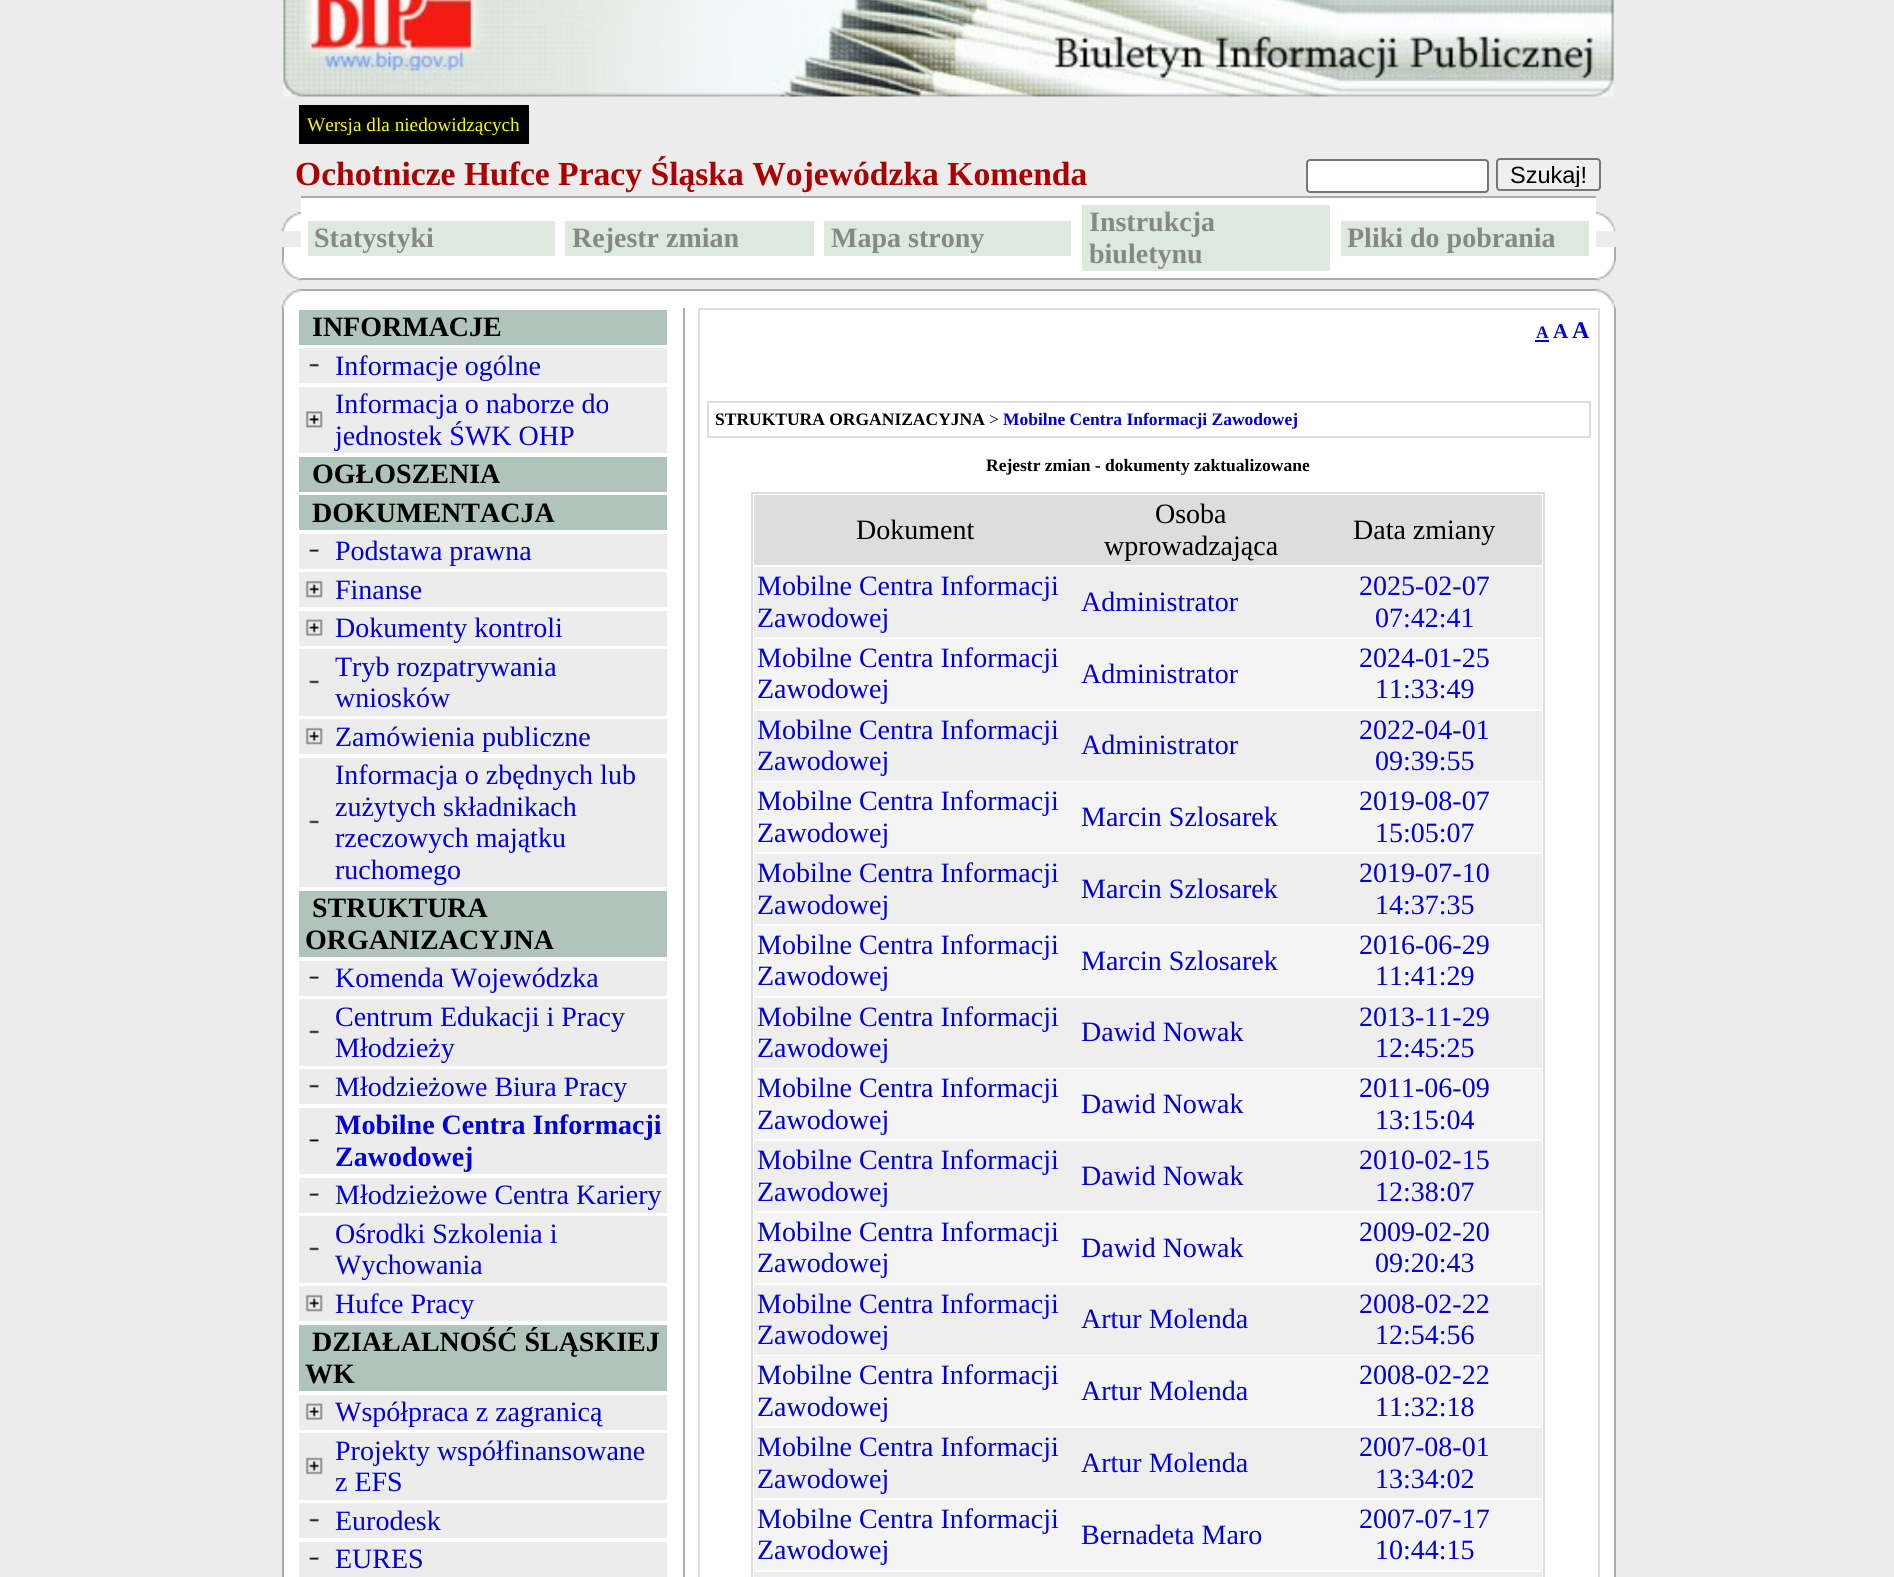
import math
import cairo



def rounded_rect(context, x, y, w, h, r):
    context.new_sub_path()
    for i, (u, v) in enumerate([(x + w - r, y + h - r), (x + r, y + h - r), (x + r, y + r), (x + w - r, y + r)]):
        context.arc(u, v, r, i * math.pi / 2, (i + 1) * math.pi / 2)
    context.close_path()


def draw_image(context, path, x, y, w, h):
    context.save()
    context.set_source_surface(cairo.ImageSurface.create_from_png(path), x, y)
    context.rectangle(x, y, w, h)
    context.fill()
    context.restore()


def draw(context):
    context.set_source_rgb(236 / 255, 236 / 255, 236 / 255)
    context.paint()
    draw_image(context, "images/1.png", 283, 0, 1331, 97)
    context.set_source_rgb(0, 0, 0)
    context.rectangle(299, 105, 230, 39)
    context.fill()
    context.set_source_rgb(1, 1, 1)
    rounded_rect(context, 1307, 160, 181, 32, 3)
    context.fill_preserve()
    context.set_source_rgb(118 / 255, 118 / 255, 118 / 255)
    context.stroke()
    context.set_source_rgb(239 / 255, 239 / 255, 239 / 255)
    rounded_rect(context, 1497, 159, 103, 31, 3)
    context.fill_preserve()
    context.set_source_rgb(118 / 255, 118 / 255, 118 / 255)
    context.stroke()
    draw_image(context, "images/2.png", 281, 212, 20, 20)
    context.set_source_rgb(1, 1, 1)
    context.rectangle(301, 198, 1295, 80)
    context.fill()
    context.set_source_rgb(171 / 255, 171 / 255, 171 / 255)
    context.rectangle(301, 196, 1295, 2)
    context.fill()
    context.rectangle(301, 278, 1295, 2)
    context.fill()
    context.set_source_rgb(222 / 255, 233 / 255, 222 / 255)
    context.rectangle(308, 221, 247, 35)
    context.fill()
    context.rectangle(565, 221, 249, 35)
    context.fill()
    context.rectangle(824, 221, 247, 35)
    context.fill()
    context.rectangle(1082, 205, 248, 66)
    context.fill()
    context.rectangle(1341, 221, 248, 35)
    context.fill()
    draw_image(context, "images/3.png", 1596, 212, 20, 20)
    context.set_source_rgb(1, 1, 1)
    context.rectangle(284, 247, 17, 14)
    context.fill()
    context.set_source_rgb(171 / 255, 171 / 255, 171 / 255)
    context.rectangle(282, 247, 2, 14)
    context.fill()
    context.set_source_rgb(1, 1, 1)
    context.rectangle(1596, 247, 18, 14)
    context.fill()
    context.set_source_rgb(171 / 255, 171 / 255, 171 / 255)
    context.rectangle(1614, 247, 2, 14)
    context.fill()
    draw_image(context, "images/4.png", 281, 261, 20, 20)
    draw_image(context, "images/5.png", 1596, 261, 20, 20)
    context.set_source_rgb(1, 1, 1)
    context.rectangle(284, 308, 1330, 1269)
    context.fill()
    context.set_source_rgb(171 / 255, 171 / 255, 171 / 255)
    context.rectangle(282, 308, 2, 1269)
    context.fill()
    draw_image(context, "images/6.png", 281, 289, 20, 20)
    context.set_source_rgb(1, 1, 1)
    context.rectangle(301, 291, 1295, 17)
    context.fill()
    context.set_source_rgb(171 / 255, 171 / 255, 171 / 255)
    context.rectangle(301, 289, 1295, 2)
    context.fill()
    context.rectangle(1614, 308, 2, 1269)
    context.fill()
    context.rectangle(699, 309, 900, 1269)
    context.set_source_rgb(221 / 255, 221 / 255, 221 / 255)
    context.stroke()
    draw_image(context, "images/7.png", 1596, 289, 20, 20)
    context.set_source_rgb(176 / 255, 196 / 255, 187 / 255)
    context.rectangle(299, 310, 368, 35)
    context.fill()
    context.set_source_rgb(236 / 255, 236 / 255, 236 / 255)
    context.rectangle(299, 348, 368, 35)
    context.fill()
    draw_image(context, "images/8.png", 309, 363, 10, 4)
    context.rectangle(299, 387, 368, 66)
    context.fill()
    draw_image(context, "images/9.png", 305, 411, 18, 17)
    context.set_source_rgb(176 / 255, 196 / 255, 187 / 255)
    context.rectangle(299, 457, 368, 35)
    context.fill()
    context.rectangle(299, 495, 368, 35)
    context.fill()
    context.set_source_rgb(236 / 255, 236 / 255, 236 / 255)
    context.rectangle(299, 534, 368, 35)
    context.fill()
    draw_image(context, "images/10.png", 309, 549, 10, 3)
    context.rectangle(299, 572, 368, 35)
    context.fill()
    draw_image(context, "images/11.png", 305, 580, 18, 18)
    context.rectangle(299, 611, 368, 35)
    context.fill()
    draw_image(context, "images/12.png", 305, 619, 18, 17)
    context.rectangle(299, 649, 368, 67)
    context.fill()
    draw_image(context, "images/13.png", 309, 680, 10, 4)
    context.rectangle(299, 719, 368, 35)
    context.fill()
    draw_image(context, "images/11.png", 305, 727, 18, 18)
    context.rectangle(299, 758, 368, 129)
    context.fill()
    draw_image(context, "images/13.png", 309, 820, 10, 4)
    context.set_source_rgb(176 / 255, 196 / 255, 187 / 255)
    context.rectangle(299, 891, 368, 66)
    context.fill()
    context.set_source_rgb(236 / 255, 236 / 255, 236 / 255)
    context.rectangle(299, 961, 368, 35)
    context.fill()
    draw_image(context, "images/10.png", 309, 976, 10, 3)
    context.rectangle(299, 999, 368, 67)
    context.fill()
    draw_image(context, "images/13.png", 309, 1030, 10, 4)
    context.rectangle(299, 1069, 368, 35)
    context.fill()
    draw_image(context, "images/8.png", 309, 1084, 10, 4)
    context.rectangle(299, 1108, 368, 66)
    context.fill()
    draw_image(context, "images/14.png", 309, 1139, 10, 3)
    context.rectangle(299, 1178, 368, 35)
    context.fill()
    draw_image(context, "images/10.png", 309, 1193, 10, 3)
    context.rectangle(299, 1216, 368, 67)
    context.fill()
    draw_image(context, "images/13.png", 309, 1247, 10, 4)
    context.rectangle(299, 1286, 368, 35)
    context.fill()
    draw_image(context, "images/11.png", 305, 1294, 18, 18)
    context.set_source_rgb(176 / 255, 196 / 255, 187 / 255)
    context.rectangle(299, 1325, 368, 66)
    context.fill()
    context.set_source_rgb(236 / 255, 236 / 255, 236 / 255)
    context.rectangle(299, 1395, 368, 35)
    context.fill()
    draw_image(context, "images/12.png", 305, 1403, 18, 17)
    context.rectangle(299, 1433, 368, 67)
    context.fill()
    draw_image(context, "images/15.png", 305, 1457, 18, 18)
    context.rectangle(299, 1503, 368, 35)
    context.fill()
    draw_image(context, "images/8.png", 309, 1518, 10, 4)
    context.rectangle(299, 1542, 368, 35)
    context.fill()
    draw_image(context, "images/10.png", 309, 1557, 10, 3)
    context.set_source_rgb(171 / 255, 171 / 255, 171 / 255)
    context.rectangle(683, 308, 2, 1269)
    context.fill()
    context.set_source_rgb(0, 0, 215 / 255)
    context.rectangle(1535, 340, 14, 2)
    context.fill()
    context.rectangle(708, 402, 882, 35)
    context.set_source_rgb(221 / 255, 221 / 255, 221 / 255)
    context.stroke()
    context.rectangle(752, 493, 792, 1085)
    context.stroke()
    context.rectangle(754, 495, 788, 70)
    context.fill()
    context.set_source_rgb(238 / 255, 238 / 255, 238 / 255)
    context.rectangle(754, 567, 788, 70)
    context.fill()
    context.set_source_rgb(244 / 255, 244 / 255, 244 / 255)
    context.rectangle(754, 639, 788, 70)
    context.fill()
    context.set_source_rgb(238 / 255, 238 / 255, 238 / 255)
    context.rectangle(754, 711, 788, 70)
    context.fill()
    context.set_source_rgb(244 / 255, 244 / 255, 244 / 255)
    context.rectangle(754, 782, 788, 70)
    context.fill()
    context.set_source_rgb(238 / 255, 238 / 255, 238 / 255)
    context.rectangle(754, 854, 788, 70)
    context.fill()
    context.set_source_rgb(244 / 255, 244 / 255, 244 / 255)
    context.rectangle(754, 926, 788, 70)
    context.fill()
    context.set_source_rgb(238 / 255, 238 / 255, 238 / 255)
    context.rectangle(754, 998, 788, 70)
    context.fill()
    context.set_source_rgb(244 / 255, 244 / 255, 244 / 255)
    context.rectangle(754, 1069, 788, 70)
    context.fill()
    context.set_source_rgb(238 / 255, 238 / 255, 238 / 255)
    context.rectangle(754, 1141, 788, 70)
    context.fill()
    context.set_source_rgb(244 / 255, 244 / 255, 244 / 255)
    context.rectangle(754, 1213, 788, 70)
    context.fill()
    context.set_source_rgb(238 / 255, 238 / 255, 238 / 255)
    context.rectangle(754, 1285, 788, 70)
    context.fill()
    context.set_source_rgb(244 / 255, 244 / 255, 244 / 255)
    context.rectangle(754, 1356, 788, 70)
    context.fill()
    context.set_source_rgb(238 / 255, 238 / 255, 238 / 255)
    context.rectangle(754, 1428, 788, 70)
    context.fill()
    context.set_source_rgb(244 / 255, 244 / 255, 244 / 255)
    context.rectangle(754, 1500, 788, 70)
    context.fill()
    context.set_source_rgb(238 / 255, 238 / 255, 238 / 255)
    context.rectangle(754, 1572, 788, 5)
    context.fill()
    context.select_font_face("Liberation Serif")
    context.set_font_size(19.25)
    context.set_source_rgb(246 / 255, 1, 0)
    context.move_to(307, 131)
    context.show_text("Wersja dla niedowidzących")
    context.select_font_face("Liberation Serif", cairo.FontSlant.NORMAL, cairo.FontWeight.BOLD)
    context.set_font_size(33.6)
    context.set_source_rgb(172 / 255, 0, 0)
    context.move_to(295, 185)
    context.show_text("Ochotnicze Hufce Pracy Śląska Wojewódzka Komenda")
    context.save()
    context.rectangle(1500, 161, 98, 26)
    context.clip()
    context.select_font_face("Liberation Sans")
    context.set_font_size(23.5)
    context.set_source_rgb(0, 0, 0)
    context.move_to(1510, 183)
    context.show_text("Szukaj!")
    context.restore()
    context.set_font_size(28)
    context.set_source_rgb(135 / 255, 135 / 255, 135 / 255)
    context.move_to(314, 247)
    context.show_text("Statystyki")
    context.move_to(572, 247)
    context.show_text("Rejestr zmian")
    context.move_to(831, 247)
    context.show_text("Mapa strony")
    context.move_to(1089, 231)
    context.show_text("Instrukcja")
    context.move_to(1089, 263)
    context.show_text("biuletynu")
    context.move_to(1347, 247)
    context.show_text("Pliki do pobrania")
    context.set_source_rgb(0, 0, 0)
    context.move_to(312, 336)
    context.show_text("INFORMACJE")
    context.select_font_face("Liberation Serif")
    context.set_source_rgb(0, 0, 215 / 255)
    context.move_to(335, 375)
    context.show_text("Informacje ogólne")
    context.move_to(335, 413)
    context.show_text("Informacja o naborze do")
    context.move_to(335, 445)
    context.show_text("jednostek ŚWK OHP")
    context.select_font_face("Liberation Serif", cairo.FontSlant.NORMAL, cairo.FontWeight.BOLD)
    context.set_source_rgb(0, 0, 0)
    context.move_to(312, 483)
    context.show_text("OGŁOSZENIA")
    context.move_to(312, 522)
    context.show_text("DOKUMENTACJA")
    context.select_font_face("Liberation Serif")
    context.set_source_rgb(0, 0, 215 / 255)
    context.move_to(335, 560)
    context.show_text("Podstawa prawna")
    context.move_to(335, 599)
    context.show_text("Finanse")
    context.move_to(335, 637)
    context.show_text("Dokumenty kontroli")
    context.move_to(335, 676)
    context.show_text("Tryb rozpatrywania")
    context.move_to(335, 707)
    context.show_text("wniosków")
    context.move_to(335, 746)
    context.show_text("Zamówienia publiczne")
    context.move_to(335, 784)
    context.show_text("Informacja o zbędnych lub")
    context.move_to(335, 816)
    context.show_text("zużytych składnikach")
    context.move_to(335, 847)
    context.show_text("rzeczowych majątku")
    context.move_to(335, 879)
    context.show_text("ruchomego")
    context.select_font_face("Liberation Serif", cairo.FontSlant.NORMAL, cairo.FontWeight.BOLD)
    context.set_source_rgb(0, 0, 0)
    context.move_to(312, 917)
    context.show_text("STRUKTURA")
    context.move_to(305, 949)
    context.show_text("ORGANIZACYJNA")
    context.select_font_face("Liberation Serif")
    context.set_source_rgb(0, 0, 215 / 255)
    context.move_to(335, 987)
    context.show_text("Komenda Wojewódzka")
    context.move_to(335, 1026)
    context.show_text("Centrum Edukacji i Pracy")
    context.move_to(335, 1057)
    context.show_text("Młodzieży")
    context.move_to(335, 1096)
    context.show_text("Młodzieżowe Biura Pracy")
    context.select_font_face("Liberation Serif", cairo.FontSlant.NORMAL, cairo.FontWeight.BOLD)
    context.move_to(335, 1134)
    context.show_text("Mobilne Centra Informacji")
    context.move_to(335, 1166)
    context.show_text("Zawodowej")
    context.select_font_face("Liberation Serif")
    context.move_to(335, 1204)
    context.show_text("Młodzieżowe Centra Kariery")
    context.move_to(335, 1243)
    context.show_text("Ośrodki Szkolenia i")
    context.move_to(335, 1274)
    context.show_text("Wychowania")
    context.move_to(335, 1313)
    context.show_text("Hufce Pracy")
    context.select_font_face("Liberation Serif", cairo.FontSlant.NORMAL, cairo.FontWeight.BOLD)
    context.set_source_rgb(0, 0, 0)
    context.move_to(312, 1351)
    context.show_text("DZIAŁALNOŚĆ ŚLĄSKIEJ")
    context.move_to(305, 1383)
    context.show_text("WK")
    context.select_font_face("Liberation Serif")
    context.set_source_rgb(0, 0, 215 / 255)
    context.move_to(335, 1421)
    context.show_text("Współpraca z zagranicą")
    context.move_to(335, 1460)
    context.show_text("Projekty współfinansowane")
    context.move_to(335, 1491)
    context.show_text("z EFS")
    context.move_to(335, 1530)
    context.show_text("Eurodesk")
    context.move_to(335, 1568)
    context.show_text("EURES")
    context.select_font_face("Liberation Serif", cairo.FontSlant.NORMAL, cairo.FontWeight.BOLD)
    context.set_font_size(17.5)
    context.move_to(1536, 338)
    context.show_text("A")
    context.set_font_size(21)
    context.move_to(1553, 338)
    context.show_text("A")
    context.set_font_size(24)
    context.move_to(1572, 338)
    context.show_text("A")
    context.set_font_size(17.5)
    context.set_source_rgb(0, 0, 0)
    context.move_to(715, 425)
    context.show_text("STRUKTURA ORGANIZACYJNA")
    context.select_font_face("Liberation Serif")
    context.move_to(989, 425)
    context.show_text(">")
    context.select_font_face("Liberation Serif", cairo.FontSlant.NORMAL, cairo.FontWeight.BOLD)
    context.set_source_rgb(0, 0, 215 / 255)
    context.move_to(1003, 425)
    context.show_text("Mobilne Centra Informacji Zawodowej")
    context.set_source_rgb(0, 0, 0)
    context.move_to(986, 471)
    context.show_text("Rejestr zmian - dokumenty zaktualizowane")
    context.select_font_face("Liberation Serif")
    context.set_font_size(28)
    context.move_to(856, 539)
    context.show_text("Dokument")
    context.move_to(1155, 523)
    context.show_text("Osoba")
    context.move_to(1104, 555)
    context.show_text("wprowadzająca")
    context.move_to(1353, 539)
    context.show_text("Data zmiany")
    context.set_source_rgb(0, 0, 215 / 255)
    context.move_to(757, 595)
    context.show_text("Mobilne Centra Informacji")
    context.move_to(757, 627)
    context.show_text("Zawodowej")
    context.move_to(1081, 611)
    context.show_text("Administrator")
    context.move_to(1359, 595)
    context.show_text("2025-02-07")
    context.move_to(1375, 627)
    context.show_text("07:42:41")
    context.move_to(757, 667)
    context.show_text("Mobilne Centra Informacji")
    context.move_to(757, 698)
    context.show_text("Zawodowej")
    context.move_to(1081, 683)
    context.show_text("Administrator")
    context.move_to(1359, 667)
    context.show_text("2024-01-25")
    context.move_to(1375, 698)
    context.show_text("11:33:49")
    context.move_to(757, 739)
    context.show_text("Mobilne Centra Informacji")
    context.move_to(757, 770)
    context.show_text("Zawodowej")
    context.move_to(1081, 754)
    context.show_text("Administrator")
    context.move_to(1359, 739)
    context.show_text("2022-04-01")
    context.move_to(1375, 770)
    context.show_text("09:39:55")
    context.move_to(757, 810)
    context.show_text("Mobilne Centra Informacji")
    context.move_to(757, 842)
    context.show_text("Zawodowej")
    context.move_to(1081, 826)
    context.show_text("Marcin Szlosarek")
    context.move_to(1359, 810)
    context.show_text("2019-08-07")
    context.move_to(1375, 842)
    context.show_text("15:05:07")
    context.move_to(757, 882)
    context.show_text("Mobilne Centra Informacji")
    context.move_to(757, 914)
    context.show_text("Zawodowej")
    context.move_to(1081, 898)
    context.show_text("Marcin Szlosarek")
    context.move_to(1359, 882)
    context.show_text("2019-07-10")
    context.move_to(1375, 914)
    context.show_text("14:37:35")
    context.move_to(757, 954)
    context.show_text("Mobilne Centra Informacji")
    context.move_to(757, 985)
    context.show_text("Zawodowej")
    context.move_to(1081, 970)
    context.show_text("Marcin Szlosarek")
    context.move_to(1359, 954)
    context.show_text("2016-06-29")
    context.move_to(1375, 985)
    context.show_text("11:41:29")
    context.move_to(757, 1026)
    context.show_text("Mobilne Centra Informacji")
    context.move_to(757, 1057)
    context.show_text("Zawodowej")
    context.move_to(1081, 1041)
    context.show_text("Dawid Nowak")
    context.move_to(1359, 1026)
    context.show_text("2013-11-29")
    context.move_to(1375, 1057)
    context.show_text("12:45:25")
    context.move_to(757, 1097)
    context.show_text("Mobilne Centra Informacji")
    context.move_to(757, 1129)
    context.show_text("Zawodowej")
    context.move_to(1081, 1113)
    context.show_text("Dawid Nowak")
    context.move_to(1359, 1097)
    context.show_text("2011-06-09")
    context.move_to(1375, 1129)
    context.show_text("13:15:04")
    context.move_to(757, 1169)
    context.show_text("Mobilne Centra Informacji")
    context.move_to(757, 1201)
    context.show_text("Zawodowej")
    context.move_to(1081, 1185)
    context.show_text("Dawid Nowak")
    context.move_to(1359, 1169)
    context.show_text("2010-02-15")
    context.move_to(1375, 1201)
    context.show_text("12:38:07")
    context.move_to(757, 1241)
    context.show_text("Mobilne Centra Informacji")
    context.move_to(757, 1272)
    context.show_text("Zawodowej")
    context.move_to(1081, 1257)
    context.show_text("Dawid Nowak")
    context.move_to(1359, 1241)
    context.show_text("2009-02-20")
    context.move_to(1375, 1272)
    context.show_text("09:20:43")
    context.move_to(757, 1313)
    context.show_text("Mobilne Centra Informacji")
    context.move_to(757, 1344)
    context.show_text("Zawodowej")
    context.move_to(1081, 1328)
    context.show_text("Artur Molenda")
    context.move_to(1359, 1313)
    context.show_text("2008-02-22")
    context.move_to(1375, 1344)
    context.show_text("12:54:56")
    context.move_to(757, 1384)
    context.show_text("Mobilne Centra Informacji")
    context.move_to(757, 1416)
    context.show_text("Zawodowej")
    context.move_to(1081, 1400)
    context.show_text("Artur Molenda")
    context.move_to(1359, 1384)
    context.show_text("2008-02-22")
    context.move_to(1375, 1416)
    context.show_text("11:32:18")
    context.move_to(757, 1456)
    context.show_text("Mobilne Centra Informacji")
    context.move_to(757, 1488)
    context.show_text("Zawodowej")
    context.move_to(1081, 1472)
    context.show_text("Artur Molenda")
    context.move_to(1359, 1456)
    context.show_text("2007-08-01")
    context.move_to(1375, 1488)
    context.show_text("13:34:02")
    context.move_to(757, 1528)
    context.show_text("Mobilne Centra Informacji")
    context.move_to(757, 1559)
    context.show_text("Zawodowej")
    context.move_to(1081, 1544)
    context.show_text("Bernadeta Maro")
    context.move_to(1359, 1528)
    context.show_text("2007-07-17")
    context.move_to(1375, 1559)
    context.show_text("10:44:15")


surface = cairo.ImageSurface(cairo.Format.RGB24, 1894, 1577)
context = cairo.Context(surface)
options = cairo.FontOptions()
options.set_hint_metrics(cairo.HintMetrics.OFF)
options.set_hint_style(cairo.HintStyle.NONE)
context.set_font_options(options)
context.set_miter_limit(4)
draw(context)
surface.write_to_png("out.png")
